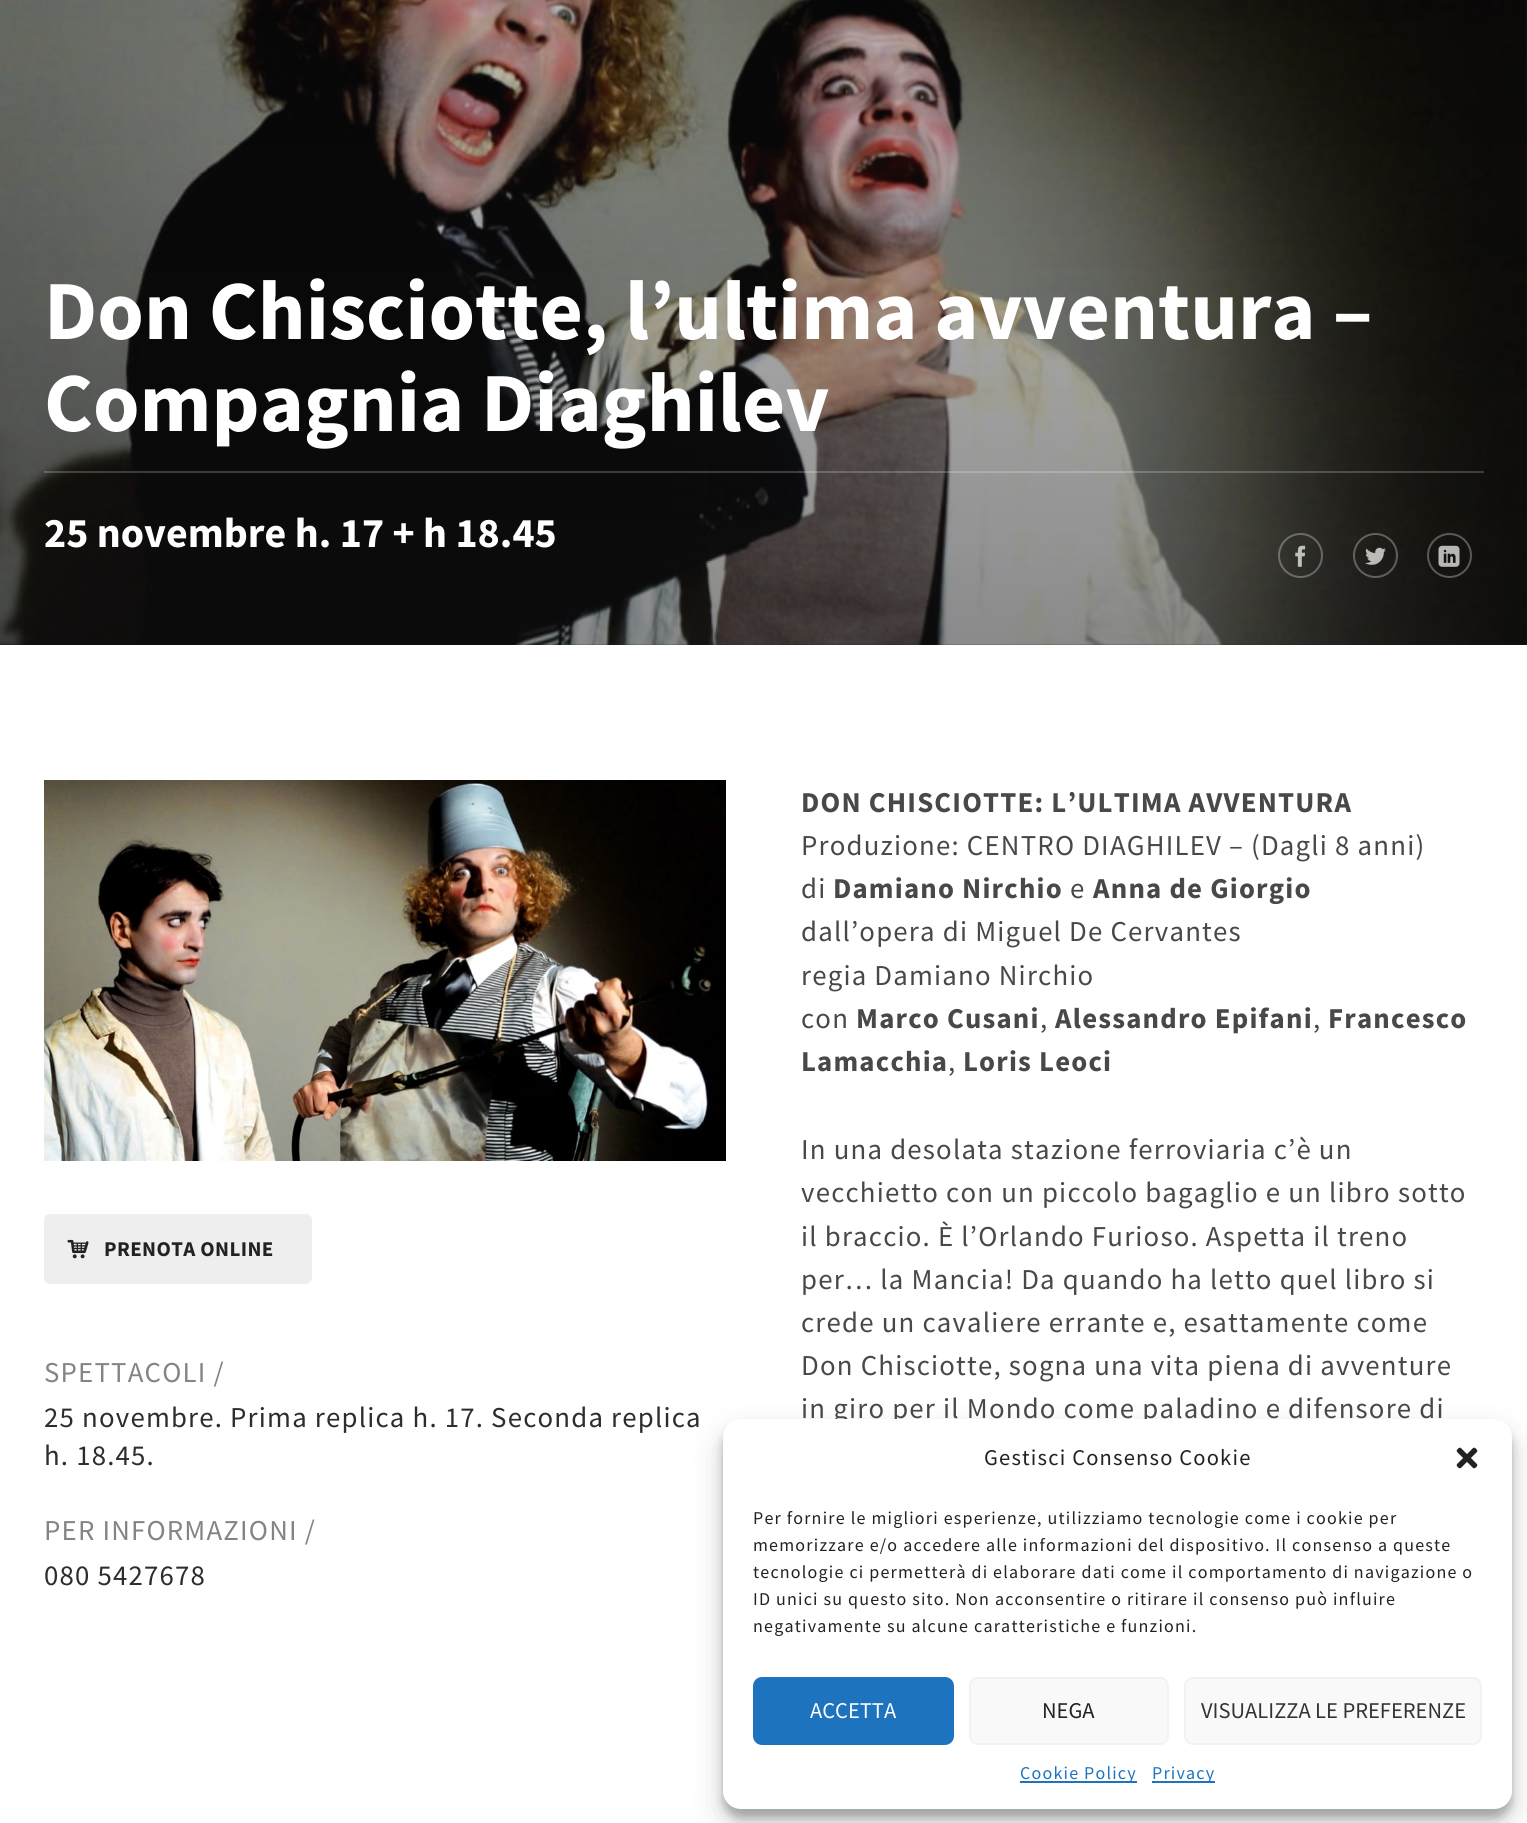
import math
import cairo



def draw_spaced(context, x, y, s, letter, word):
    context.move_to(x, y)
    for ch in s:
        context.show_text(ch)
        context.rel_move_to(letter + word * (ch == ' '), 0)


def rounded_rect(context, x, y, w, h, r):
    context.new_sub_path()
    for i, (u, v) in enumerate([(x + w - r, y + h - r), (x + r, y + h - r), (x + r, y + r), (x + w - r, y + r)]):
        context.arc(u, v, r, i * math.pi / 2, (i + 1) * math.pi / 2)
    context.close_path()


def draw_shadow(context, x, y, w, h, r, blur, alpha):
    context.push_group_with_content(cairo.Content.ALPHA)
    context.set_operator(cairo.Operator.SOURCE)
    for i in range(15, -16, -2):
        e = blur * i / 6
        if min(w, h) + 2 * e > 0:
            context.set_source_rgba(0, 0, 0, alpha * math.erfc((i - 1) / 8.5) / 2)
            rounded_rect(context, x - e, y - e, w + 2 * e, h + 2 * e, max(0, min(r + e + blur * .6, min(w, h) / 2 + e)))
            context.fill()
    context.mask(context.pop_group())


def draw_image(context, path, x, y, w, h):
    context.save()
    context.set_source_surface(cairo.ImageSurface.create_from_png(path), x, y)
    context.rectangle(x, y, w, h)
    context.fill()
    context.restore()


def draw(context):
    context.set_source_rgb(1, 1, 1)
    context.paint()
    draw_image(context, "images/1.png", 0, 0, 1527, 645)
    draw_image(context, "images/2.png", 0, 0, 1527, 645)
    gradient = cairo.LinearGradient(764, 645, 764, -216)
    gradient.add_color_stop_rgba(0, 23 / 255, 23 / 255, 25 / 255, 0.5)
    gradient.add_color_stop_rgba(1, 23 / 255, 23 / 255, 25 / 255, 0.2)
    context.set_source(gradient)
    context.rectangle(0, 0, 1527, 645)
    context.fill()
    context.set_source_rgba(1, 1, 1, 0.2)
    context.rectangle(44, 471, 1440, 2)
    context.fill()
    context.arc(1300.5, 555.5, 21.5, 0, 2 * math.pi)
    context.set_source_rgba(1, 1, 1, 0.3)
    context.stroke()
    draw_image(context, "images/3.png", 1295, 545, 11, 22)
    context.arc(1375.5, 555.5, 21.5, 0, 2 * math.pi)
    context.stroke()
    draw_image(context, "images/4.png", 1365, 547, 21, 18)
    context.arc(1449.5, 555.5, 21.5, 0, 2 * math.pi)
    context.stroke()
    draw_image(context, "images/5.png", 1438, 545, 22, 22)
    draw_image(context, "images/6.png", 44, 780, 682, 381)
    context.set_source_rgb(238 / 255, 238 / 255, 238 / 255)
    rounded_rect(context, 45.5, 1215.5, 265, 67, 4.5)
    context.fill_preserve()
    context.set_line_width(3)
    context.stroke()
    draw_image(context, "images/7.png", 67, 1239, 22, 20)
    context.set_source_rgb(0, 0, 0)
    draw_shadow(context, 723, 1428, 789, 390, 18, 4.5, 0.23)
    draw_shadow(context, 723, 1434, 789, 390, 18, 15, 0.19)
    context.select_font_face("Source Sans Pro", cairo.FontSlant.NORMAL, cairo.FontWeight.BOLD)
    context.set_font_size(84)
    context.set_source_rgb(1, 1, 1)
    context.move_to(44, 339)
    context.show_text("Don Chisciotte, l’ultima avventura –")
    context.move_to(44, 431)
    context.show_text("Compagnia Diaghilev")
    context.set_font_size(42)
    context.move_to(44, 547)
    context.show_text("25 novembre h. 17 + h 18.45")
    context.set_font_size(21)
    context.set_source_rgb(34 / 255, 34 / 255, 34 / 255)
    draw_spaced(context, 104, 1256, "PRENOTA ONLINE", 0.4, 0)
    context.select_font_face("Source Sans Pro")
    context.set_font_size(28.8)
    context.set_source_rgb(132 / 255, 132 / 255, 132 / 255)
    draw_spaced(context, 44, 1382, "SPETTACOLI /", 1.2, 0)
    context.set_source_rgb(45 / 255, 45 / 255, 45 / 255)
    draw_spaced(context, 44, 1427, "25 novembre. Prima replica h. 17. Seconda replica", 1.2, 0)
    draw_spaced(context, 44, 1465, "h. 18.45.", 1.2, 0)
    context.set_source_rgb(132 / 255, 132 / 255, 132 / 255)
    draw_spaced(context, 44, 1540, "PER INFORMAZIONI /", 1.2, 0)
    context.set_source_rgb(45 / 255, 45 / 255, 45 / 255)
    draw_spaced(context, 44, 1585, "080 5427678", 1.2, 0)
    context.select_font_face("Source Sans Pro", cairo.FontSlant.NORMAL, cairo.FontWeight.BOLD)
    context.set_source_rgb(72 / 255, 72 / 255, 72 / 255)
    draw_spaced(context, 801, 812, "DON CHISCIOTTE: L’ULTIMA AVVENTURA", 1.2, 0)
    context.select_font_face("Source Sans Pro")
    draw_spaced(context, 801, 855, "Produzione: CENTRO DIAGHILEV – (Dagli 8 anni)", 1.2, 0)
    draw_spaced(context, 801, 898, "di", 1.2, 0)
    context.select_font_face("Source Sans Pro", cairo.FontSlant.NORMAL, cairo.FontWeight.BOLD)
    draw_spaced(context, 833, 898, "Damiano Nirchio", 1.2, 0)
    context.select_font_face("Source Sans Pro")
    draw_spaced(context, 1070, 898, "e", 1.2, 0)
    context.select_font_face("Source Sans Pro", cairo.FontSlant.NORMAL, cairo.FontWeight.BOLD)
    draw_spaced(context, 1093, 898, "Anna de Giorgio", 1.2, 0)
    context.select_font_face("Source Sans Pro")
    draw_spaced(context, 801, 941, "dall’opera di Miguel De Cervantes", 1.2, 0)
    draw_spaced(context, 801, 985, "regia Damiano Nirchio", 1.2, 0)
    draw_spaced(context, 801, 1028, "con", 1.2, 0)
    context.select_font_face("Source Sans Pro", cairo.FontSlant.NORMAL, cairo.FontWeight.BOLD)
    draw_spaced(context, 856, 1028, "Marco Cusani", 1.2, 0)
    context.select_font_face("Source Sans Pro")
    draw_spaced(context, 1040, 1028, ",", 1.2, 0)
    context.select_font_face("Source Sans Pro", cairo.FontSlant.NORMAL, cairo.FontWeight.BOLD)
    draw_spaced(context, 1055, 1028, "Alessandro Epifani", 1.2, 0)
    context.select_font_face("Source Sans Pro")
    draw_spaced(context, 1313, 1028, ",", 1.2, 0)
    context.select_font_face("Source Sans Pro", cairo.FontSlant.NORMAL, cairo.FontWeight.BOLD)
    draw_spaced(context, 1328, 1028, "Francesco", 1.2, 0)
    draw_spaced(context, 801, 1071, "Lamacchia", 1.2, 0)
    context.select_font_face("Source Sans Pro")
    draw_spaced(context, 948, 1071, ",", 1.2, 0)
    context.select_font_face("Source Sans Pro", cairo.FontSlant.NORMAL, cairo.FontWeight.BOLD)
    draw_spaced(context, 963, 1071, "Loris Leoci", 1.2, 0)
    context.select_font_face("Source Sans Pro")
    draw_spaced(context, 801, 1159, "In una desolata stazione ferroviaria c’è un", 1.2, 0)
    draw_spaced(context, 801, 1202, "vecchietto con un piccolo bagaglio e un libro sotto", 1.2, 0)
    draw_spaced(context, 801, 1246, "il braccio. È l’Orlando Furioso. Aspetta il treno", 1.2, 0)
    draw_spaced(context, 801, 1289, "per… la Mancia! Da quando ha letto quel libro si", 1.2, 0)
    draw_spaced(context, 801, 1332, "crede un cavaliere errante e, esattamente come", 1.2, 0)
    draw_spaced(context, 801, 1375, "Don Chisciotte, sogna una vita piena di avventure", 1.2, 0)
    draw_spaced(context, 801, 1418, "in giro per il Mondo come paladino e difensore di", 1.2, 0)
    context.set_source_rgb(1, 1, 1)
    rounded_rect(context, 723, 1419, 789, 390, 18)
    context.fill()
    context.set_font_size(22.5)
    context.set_source_rgb(34 / 255, 34 / 255, 34 / 255)
    draw_spaced(context, 984, 1465, "Gestisci Consenso Cookie", 1.2, 0)
    draw_image(context, "images/8.png", 1456, 1447, 22, 22)
    context.set_font_size(18)
    draw_spaced(context, 753, 1524, "Per fornire le migliori esperienze, utilizziamo tecnologie come i cookie per", 1.2, 0)
    draw_spaced(context, 753, 1551, "memorizzare e/o accedere alle informazioni del dispositivo. Il consenso a queste", 1.2, 0)
    draw_spaced(context, 753, 1578, "tecnologie ci permetterà di elaborare dati come il comportamento di navigazione o", 1.2, 0)
    draw_spaced(context, 753, 1605, "ID unici su questo sito. Non acconsentire o ritirare il consenso può influire", 1.2, 0)
    draw_spaced(context, 753, 1632, "negativamente su alcune caratteristiche e funzioni.", 1.2, 0)
    context.set_source_rgb(30 / 255, 115 / 255, 190 / 255)
    rounded_rect(context, 754, 1678, 199, 66, 8)
    context.fill_preserve()
    context.set_line_width(2)
    context.stroke()
    context.set_font_size(22.5)
    context.set_source_rgb(1, 1, 1)
    context.move_to(810, 1718)
    context.show_text("ACCETTA")
    context.set_source_rgb(249 / 255, 249 / 255, 249 / 255)
    rounded_rect(context, 970, 1678, 198, 66, 8)
    context.fill_preserve()
    context.set_source_rgb(242 / 255, 242 / 255, 242 / 255)
    context.stroke()
    context.set_source_rgb(34 / 255, 34 / 255, 34 / 255)
    context.move_to(1042, 1718)
    context.show_text("NEGA")
    context.set_source_rgb(249 / 255, 249 / 255, 249 / 255)
    rounded_rect(context, 1185, 1678, 296, 66, 8)
    context.fill_preserve()
    context.set_source_rgb(242 / 255, 242 / 255, 242 / 255)
    context.stroke()
    context.set_source_rgb(51 / 255, 51 / 255, 51 / 255)
    context.move_to(1201, 1718)
    context.show_text("VISUALIZZA LE PREFERENZE")
    context.set_source_rgb(30 / 255, 115 / 255, 190 / 255)
    context.rectangle(1020, 1781, 117, 2)
    context.fill()
    context.set_font_size(18)
    draw_spaced(context, 1020, 1779, "Cookie Policy", 1.2, 0)
    context.rectangle(1152, 1781, 63, 2)
    context.fill()
    draw_spaced(context, 1152, 1779, "Privacy", 1.2, 0)


surface = cairo.ImageSurface(cairo.Format.RGB24, 1527, 1823)
context = cairo.Context(surface)
options = cairo.FontOptions()
options.set_hint_metrics(cairo.HintMetrics.OFF)
options.set_hint_style(cairo.HintStyle.NONE)
context.set_font_options(options)
context.set_miter_limit(4)
draw(context)
surface.write_to_png("out.png")
